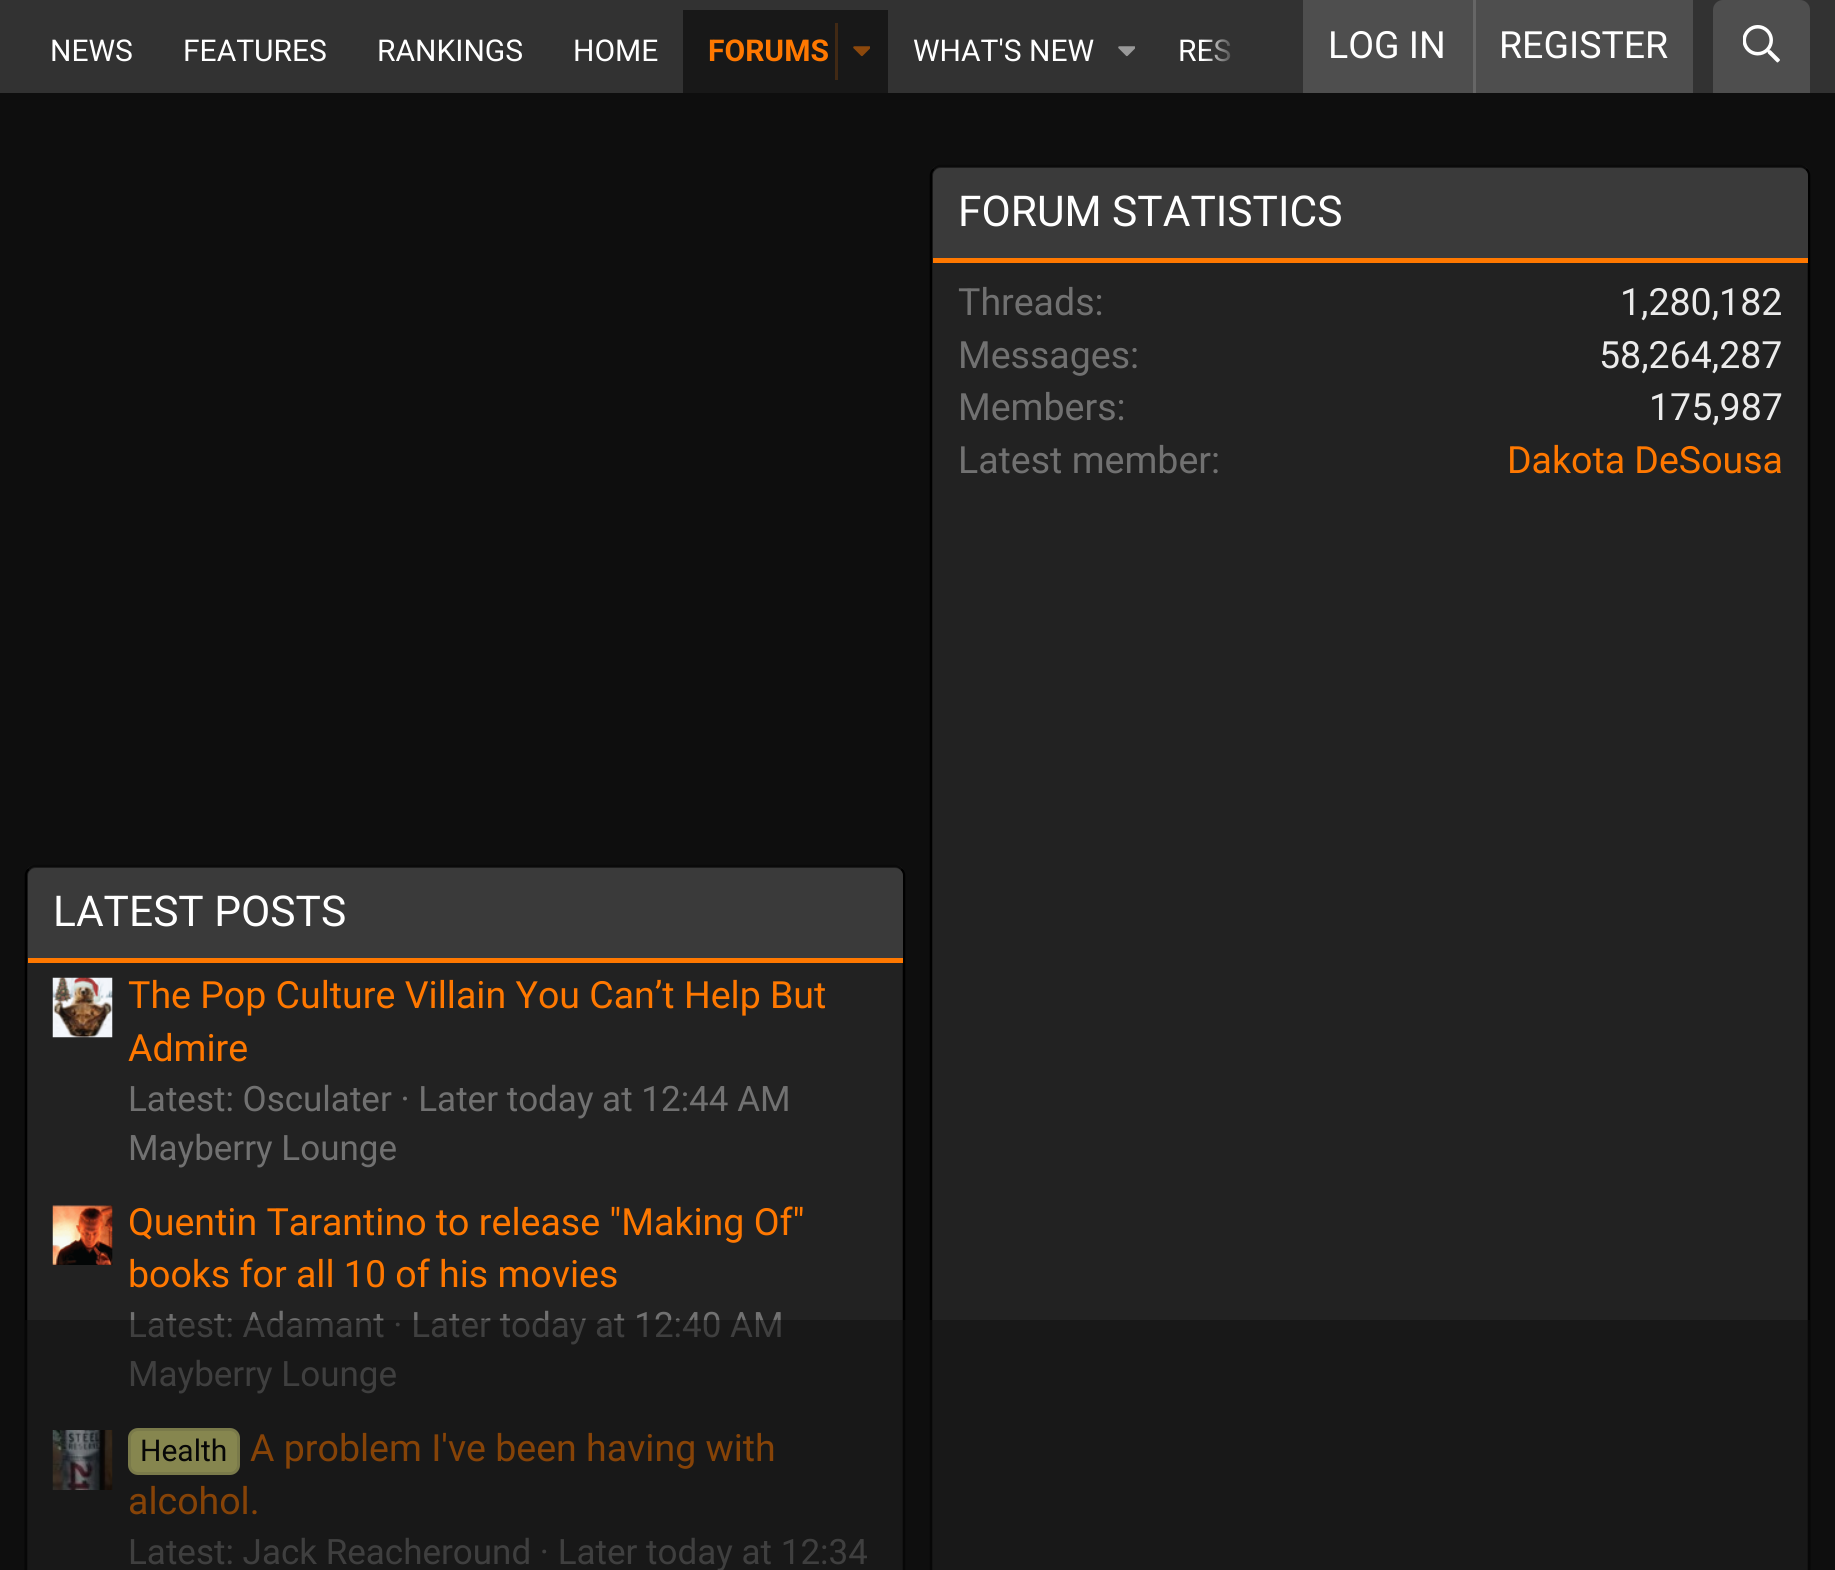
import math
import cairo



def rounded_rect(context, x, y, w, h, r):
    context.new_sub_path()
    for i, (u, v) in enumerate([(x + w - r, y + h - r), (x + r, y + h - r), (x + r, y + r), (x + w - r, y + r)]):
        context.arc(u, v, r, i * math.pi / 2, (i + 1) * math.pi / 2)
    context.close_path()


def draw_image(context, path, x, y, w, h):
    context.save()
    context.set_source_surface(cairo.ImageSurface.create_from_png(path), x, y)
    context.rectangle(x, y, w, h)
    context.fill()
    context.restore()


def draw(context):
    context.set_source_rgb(14 / 255, 14 / 255, 14 / 255)
    context.paint()
    context.set_source_rgb(50 / 255, 50 / 255, 50 / 255)
    context.rectangle(0, 0, 1835, 93)
    context.fill()
    context.set_source_rgb(24 / 255, 24 / 255, 24 / 255)
    context.rectangle(683, 10, 205, 83)
    context.fill()
    context.set_source_rgb(65 / 255, 41 / 255, 20 / 255)
    context.rectangle(835, 23, 3, 57)
    context.fill()
    draw_image(context, "images/1.png", 853, 46, 17, 11)
    draw_image(context, "images/2.png", 1118, 46, 17, 11)
    context.set_source_rgb(78 / 255, 78 / 255, 78 / 255)
    context.rectangle(1303, 0, 390, 93)
    context.fill()
    context.set_source_rgb(102 / 255, 102 / 255, 102 / 255)
    context.rectangle(1473, 0, 3, 93)
    context.fill()
    context.set_source_rgb(78 / 255, 78 / 255, 78 / 255)
    context.new_path()
    context.move_to(1723, 0)
    context.line_to(1800, 0)
    context.curve_to(1805.5, 0, 1810, 4.5, 1810, 10)
    context.line_to(1810, 93)
    context.line_to(1713, 93)
    context.line_to(1713, 10)
    context.curve_to(1713, 4.5, 1717.5, 0, 1723, 0)
    context.close_path()
    context.fill()
    draw_image(context, "images/3.png", 1743, 25, 37, 38)
    context.set_source_rgb(34 / 255, 34 / 255, 34 / 255)
    rounded_rect(context, 930, 165, 880, 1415, 10)
    context.fill()
    context.new_path()
    context.move_to(934, 169)
    context.curve_to(935.5, 167, 937.5, 166, 940, 166)
    context.line_to(1800, 166)
    context.curve_to(1802.5, 166, 1804.5, 167, 1806, 169)
    context.set_source_rgb(10 / 255, 10 / 255, 10 / 255)
    context.set_line_width(2.5)
    context.stroke()
    context.new_path()
    context.move_to(1806, 169)
    context.curve_to(1808, 170.5, 1809, 172.5, 1809, 175)
    context.line_to(1809, 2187.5)
    context.curve_to(1809, 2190, 1808, 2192, 1806, 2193.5)
    context.curve_to(1804.5, 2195.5, 1802.5, 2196, 1800, 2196)
    context.line_to(940, 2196)
    context.curve_to(937.5, 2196, 935.5, 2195.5, 934, 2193.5)
    context.curve_to(932, 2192, 931, 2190, 931, 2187.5)
    context.line_to(931, 175)
    context.curve_to(931, 172.5, 932, 170.5, 934, 169)
    context.set_source_rgb(0, 0, 0)
    context.stroke()
    context.set_source_rgb(58 / 255, 58 / 255, 58 / 255)
    context.new_path()
    context.move_to(941, 168)
    context.line_to(1800, 168)
    context.curve_to(1804.5, 168, 1808, 171.5, 1808, 176)
    context.line_to(1808, 263)
    context.line_to(933, 263)
    context.line_to(933, 176)
    context.curve_to(933, 171.5, 936.5, 168, 941, 168)
    context.close_path()
    context.fill()
    context.set_source_rgb(1, 120 / 255, 0)
    context.rectangle(933, 258, 875, 5)
    context.fill()
    context.set_source_rgb(34 / 255, 34 / 255, 34 / 255)
    rounded_rect(context, 25, 865, 880, 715, 10)
    context.fill()
    context.new_path()
    context.move_to(29, 869)
    context.curve_to(30.5, 867, 32.5, 866, 35, 866)
    context.line_to(895, 866)
    context.curve_to(897.5, 866, 899.5, 867, 901, 869)
    context.set_source_rgb(10 / 255, 10 / 255, 10 / 255)
    context.stroke()
    context.new_path()
    context.move_to(901, 869)
    context.curve_to(903, 870.5, 904, 872.5, 904, 875)
    context.line_to(904, 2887.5)
    context.curve_to(904, 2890, 903, 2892, 901, 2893.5)
    context.curve_to(899.5, 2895.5, 897.5, 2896, 895, 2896)
    context.line_to(35, 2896)
    context.curve_to(32.5, 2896, 30.5, 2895.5, 29, 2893.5)
    context.curve_to(27, 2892, 26, 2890, 26, 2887.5)
    context.line_to(26, 875)
    context.curve_to(26, 872.5, 27, 870.5, 29, 869)
    context.set_source_rgb(0, 0, 0)
    context.stroke()
    context.set_source_rgb(58 / 255, 58 / 255, 58 / 255)
    context.new_path()
    context.move_to(36, 868)
    context.line_to(895, 868)
    context.curve_to(899.5, 868, 903, 871.5, 903, 876)
    context.line_to(903, 963)
    context.line_to(28, 963)
    context.line_to(28, 876)
    context.curve_to(28, 871.5, 31.5, 868, 36, 868)
    context.close_path()
    context.fill()
    context.set_source_rgb(1, 120 / 255, 0)
    context.rectangle(28, 958, 875, 5)
    context.fill()
    draw_image(context, "images/4.png", 52, 977, 61, 61)
    draw_image(context, "images/5.png", 52, 1205, 61, 60)
    draw_image(context, "images/6.png", 52, 1430, 61, 60)
    context.set_source_rgb(1, 1, 145 / 255)
    rounded_rect(context, 129.5, 1429.5, 109, 44, 8.5)
    context.fill_preserve()
    context.set_source_rgb(230 / 255, 230 / 255, 135 / 255)
    context.set_line_width(3)
    context.stroke()
    context.select_font_face("Roboto")
    context.set_font_size(30)
    context.set_source_rgb(1, 1, 1)
    context.move_to(50, 61)
    context.show_text("NEWS")
    context.move_to(183, 61)
    context.show_text("FEATURES")
    context.move_to(377, 61)
    context.show_text("RANKINGS")
    context.move_to(573, 61)
    context.show_text("HOME")
    context.select_font_face("Roboto", cairo.FontSlant.NORMAL, cairo.FontWeight.BOLD)
    context.set_source_rgb(1, 120 / 255, 0)
    context.move_to(708, 61)
    context.show_text("FORUMS")
    context.select_font_face("Roboto")
    context.set_source_rgb(1, 1, 1)
    context.move_to(913, 61)
    context.show_text("WHAT'S NEW")
    context.move_to(1178, 61)
    context.show_text("RES")
    gradient = cairo.LinearGradient(1203, 51, 1303, 51)
    gradient.add_color_stop_rgba(0, 50 / 255, 50 / 255, 50 / 255, 0)
    gradient.add_color_stop_rgba(0.33, 50 / 255, 50 / 255, 50 / 255, 1)
    context.set_source(gradient)
    context.rectangle(1204, 39, 27, 23)
    context.fill()
    context.set_font_size(37.5)
    context.set_source_rgb(1, 1, 1)
    context.move_to(1328, 58)
    context.show_text("LOG IN")
    context.move_to(1499, 58)
    context.show_text("REGISTER")
    context.set_font_size(42.5)
    context.move_to(958, 226)
    context.show_text("FORUM STATISTICS")
    context.set_font_size(37.5)
    context.set_source_rgb(113 / 255, 113 / 255, 113 / 255)
    context.move_to(958, 315)
    context.show_text("Threads:")
    context.set_source_rgb(235 / 255, 235 / 255, 235 / 255)
    context.move_to(1620, 315)
    context.show_text("1,280,182")
    context.set_source_rgb(113 / 255, 113 / 255, 113 / 255)
    context.move_to(958, 368)
    context.show_text("Messages:")
    context.set_source_rgb(235 / 255, 235 / 255, 235 / 255)
    context.move_to(1599, 368)
    context.show_text("58,264,287")
    context.set_source_rgb(113 / 255, 113 / 255, 113 / 255)
    context.move_to(958, 420)
    context.show_text("Members:")
    context.set_source_rgb(235 / 255, 235 / 255, 235 / 255)
    context.move_to(1649, 420)
    context.show_text("175,987")
    context.set_source_rgb(113 / 255, 113 / 255, 113 / 255)
    context.move_to(958, 473)
    context.show_text("Latest member:")
    context.set_source_rgb(1, 120 / 255, 0)
    context.move_to(1507, 473)
    context.show_text("Dakota DeSousa")
    context.set_font_size(42.5)
    context.set_source_rgb(1, 1, 1)
    context.move_to(53, 926)
    context.show_text("LATEST POSTS")
    context.set_font_size(37.5)
    context.set_source_rgb(1, 120 / 255, 0)
    context.move_to(128, 1008)
    context.show_text("The Pop Culture Villain You Can’t Help But")
    context.move_to(128, 1061)
    context.show_text("Admire")
    context.set_font_size(35)
    context.set_source_rgb(113 / 255, 113 / 255, 113 / 255)
    context.move_to(128, 1111)
    context.show_text("Latest: Osculater · Later today at 12:44 AM")
    context.move_to(128, 1160)
    context.show_text("Mayberry Lounge")
    context.set_font_size(37.5)
    context.set_source_rgb(1, 120 / 255, 0)
    context.move_to(128, 1235)
    context.show_text("Quentin Tarantino to release \"Making Of\"")
    context.move_to(128, 1287)
    context.show_text("books for all 10 of his movies")
    context.set_font_size(35)
    context.set_source_rgb(113 / 255, 113 / 255, 113 / 255)
    context.move_to(128, 1337)
    context.show_text("Latest: Adamant · Later today at 12:40 AM")
    context.move_to(128, 1386)
    context.show_text("Mayberry Lounge")
    context.set_font_size(30)
    context.set_source_rgb(0, 0, 0)
    context.move_to(140, 1461)
    context.show_text("Health")
    context.set_font_size(37.5)
    context.set_source_rgb(1, 120 / 255, 0)
    context.move_to(250, 1461)
    context.show_text("A problem I've been having with")
    context.move_to(128, 1514)
    context.show_text("alcohol.")
    context.set_font_size(35)
    context.set_source_rgb(113 / 255, 113 / 255, 113 / 255)
    context.move_to(128, 1564)
    context.show_text("Latest: Jack Reacheround · Later today at 12:34")
    context.set_source_rgba(14 / 255, 14 / 255, 14 / 255, 0.5)
    context.rectangle(25, 1320, 1785, 250)
    context.fill()


surface = cairo.ImageSurface(cairo.Format.RGB24, 1835, 1570)
context = cairo.Context(surface)
options = cairo.FontOptions()
options.set_hint_metrics(cairo.HintMetrics.OFF)
options.set_hint_style(cairo.HintStyle.NONE)
context.set_font_options(options)
context.set_miter_limit(4)
draw(context)
surface.write_to_png("out.png")
